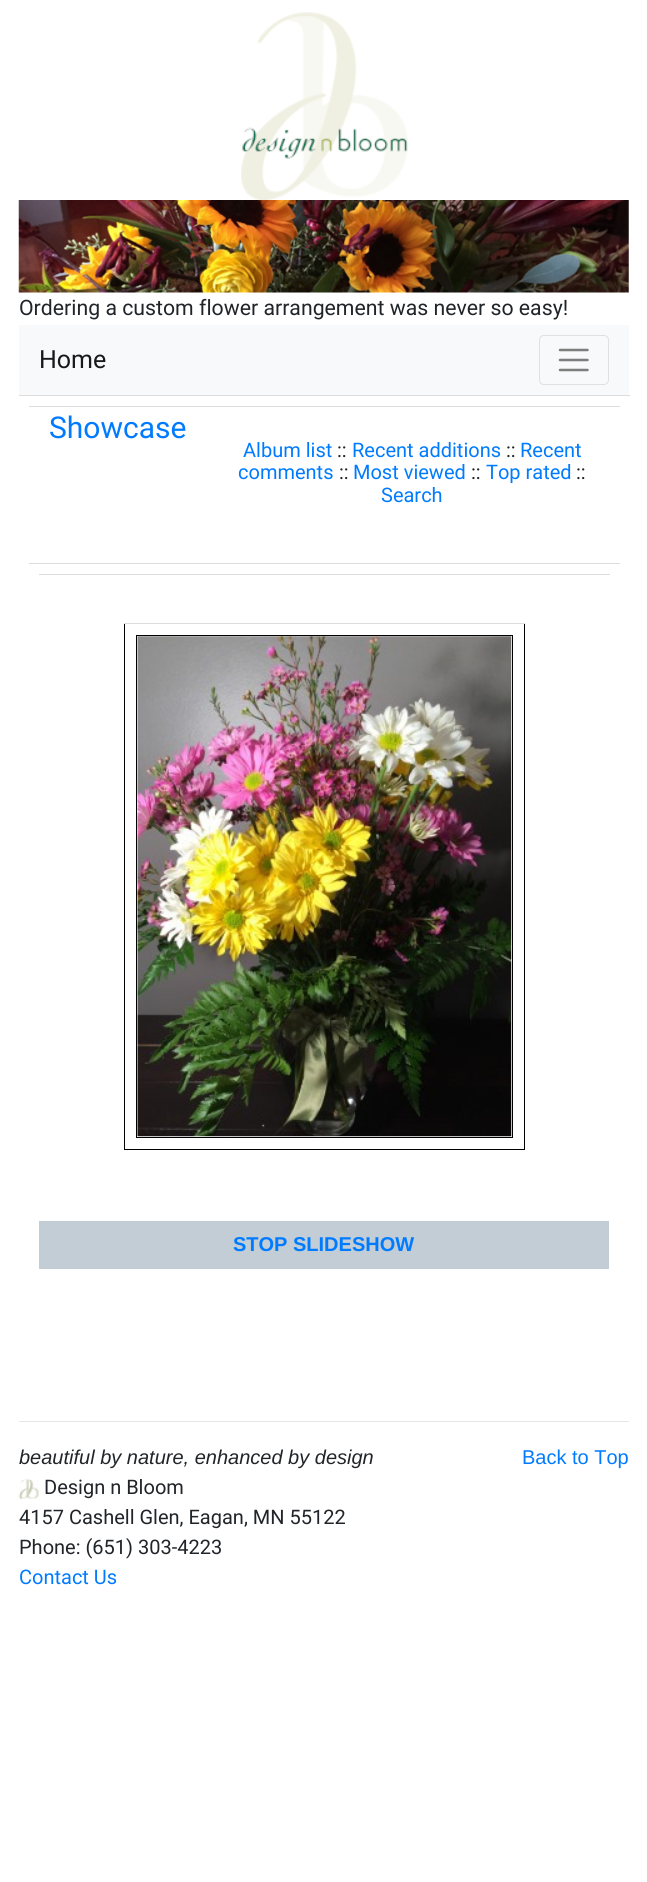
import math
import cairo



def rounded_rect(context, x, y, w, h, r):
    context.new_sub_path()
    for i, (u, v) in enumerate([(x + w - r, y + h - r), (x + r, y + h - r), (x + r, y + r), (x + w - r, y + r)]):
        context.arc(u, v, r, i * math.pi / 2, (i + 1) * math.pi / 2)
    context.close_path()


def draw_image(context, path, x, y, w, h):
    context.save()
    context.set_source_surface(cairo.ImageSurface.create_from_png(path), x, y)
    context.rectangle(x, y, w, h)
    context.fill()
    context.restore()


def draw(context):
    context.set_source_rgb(1, 1, 1)
    context.paint()
    draw_image(context, "images/1.png", 241, 12, 167, 188)
    draw_image(context, "images/2.png", 18, 200, 611, 93)
    context.set_source_rgb(248 / 255, 249 / 255, 250 / 255)
    context.rectangle(19, 325, 610, 70)
    context.fill()
    rounded_rect(context, 539.5, 335.5, 69, 49, 4.5)
    context.set_source_rgb(223 / 255, 224 / 255, 225 / 255)
    context.set_line_width(1)
    context.stroke()
    context.new_path()
    context.move_to(560, 350)
    context.line_to(587.5, 350)
    context.move_to(560, 360)
    context.line_to(587.5, 360)
    context.move_to(560, 370)
    context.line_to(587.5, 370)
    context.set_source_rgb(124 / 255, 125 / 255, 125 / 255)
    context.set_line_width(2.5)
    context.set_line_cap(cairo.LineCap.ROUND)
    context.stroke()
    context.set_source_rgb(221 / 255, 221 / 255, 221 / 255)
    context.rectangle(19, 395, 611, 1)
    context.fill()
    context.rectangle(29, 406, 591, 1)
    context.fill()
    context.rectangle(29, 563, 591, 1)
    context.fill()
    context.rectangle(39, 574, 571, 1)
    context.fill()
    context.set_source_rgb(0, 0, 0)
    context.rectangle(524, 623, 1, 527)
    context.fill()
    context.rectangle(124, 1149, 401, 1)
    context.fill()
    context.rectangle(124, 623, 1, 527)
    context.fill()
    context.set_source_rgb(221 / 255, 221 / 255, 221 / 255)
    context.rectangle(124, 623, 401, 1)
    context.fill()
    context.rectangle(136.5, 635.5, 376, 502)
    context.set_source_rgb(0, 0, 0)
    context.set_line_width(1)
    context.set_line_cap(cairo.LineCap.BUTT)
    context.stroke()
    draw_image(context, "images/3.png", 137, 636, 375, 501)
    context.set_source_rgb(194 / 255, 205 / 255, 214 / 255)
    context.rectangle(39, 1221, 570, 48)
    context.fill()
    context.set_source_rgb(230 / 255, 230 / 255, 230 / 255)
    context.rectangle(19, 1421, 610, 1)
    context.fill()
    draw_image(context, "images/4.png", 18, 1478, 21, 21)
    context.select_font_face("Roboto")
    context.set_font_size(21.25)
    context.set_source_rgb(33 / 255, 37 / 255, 41 / 255)
    context.move_to(19, 315)
    context.show_text("Ordering a custom flower arrangement was never so easy!")
    context.set_font_size(25)
    context.set_source_rgb(25 / 255, 25 / 255, 25 / 255)
    context.move_to(39, 368)
    context.show_text("Home")
    context.set_font_size(30)
    context.set_source_rgb(0, 123 / 255, 1)
    context.move_to(49, 438)
    context.show_text("Showcase")
    context.set_font_size(20)
    context.move_to(243, 457)
    context.show_text("Album list")
    context.set_source_rgb(33 / 255, 37 / 255, 41 / 255)
    context.move_to(337, 457)
    context.show_text("::")
    context.set_source_rgb(0, 123 / 255, 1)
    context.move_to(352, 457)
    context.show_text("Recent additions")
    context.set_source_rgb(33 / 255, 37 / 255, 41 / 255)
    context.move_to(506, 457)
    context.show_text("::")
    context.set_source_rgb(0, 123 / 255, 1)
    context.move_to(520, 457)
    context.show_text("Recent")
    context.move_to(238, 479)
    context.show_text("comments")
    context.set_source_rgb(33 / 255, 37 / 255, 41 / 255)
    context.move_to(339, 479)
    context.show_text("::")
    context.set_source_rgb(0, 123 / 255, 1)
    context.move_to(353, 479)
    context.show_text("Most viewed")
    context.set_source_rgb(33 / 255, 37 / 255, 41 / 255)
    context.move_to(471, 479)
    context.show_text("::")
    context.set_source_rgb(0, 123 / 255, 1)
    context.move_to(486, 479)
    context.show_text("Top rated")
    context.set_source_rgb(33 / 255, 37 / 255, 41 / 255)
    context.move_to(576, 479)
    context.show_text("::")
    context.set_source_rgb(0, 123 / 255, 1)
    context.move_to(381, 502)
    context.show_text("Search")
    context.select_font_face("Liberation Sans", cairo.FontSlant.NORMAL, cairo.FontWeight.BOLD)
    context.move_to(233, 1251)
    context.show_text("STOP SLIDESHOW")
    context.select_font_face("Liberation Sans", cairo.FontSlant.ITALIC)
    context.set_source_rgb(33 / 255, 37 / 255, 41 / 255)
    context.move_to(19, 1464)
    context.show_text("beautiful by nature, enhanced by design")
    context.select_font_face("Liberation Sans")
    context.set_source_rgb(0, 123 / 255, 1)
    context.move_to(522, 1464)
    context.show_text("Back to Top")
    context.select_font_face("Roboto")
    context.set_source_rgb(33 / 255, 37 / 255, 41 / 255)
    context.move_to(44, 1494)
    context.show_text("Design n Bloom")
    context.move_to(19, 1524)
    context.show_text("4157 Cashell Glen, Eagan, MN 55122")
    context.move_to(19, 1554)
    context.show_text("Phone: (651) 303-4223")
    context.set_source_rgb(0, 123 / 255, 1)
    context.move_to(19, 1584)
    context.show_text("Contact Us")


surface = cairo.ImageSurface(cairo.Format.RGB24, 647, 1882)
context = cairo.Context(surface)
options = cairo.FontOptions()
options.set_hint_metrics(cairo.HintMetrics.OFF)
options.set_hint_style(cairo.HintStyle.NONE)
context.set_font_options(options)
context.set_miter_limit(4)
draw(context)
surface.write_to_png("out.png")
